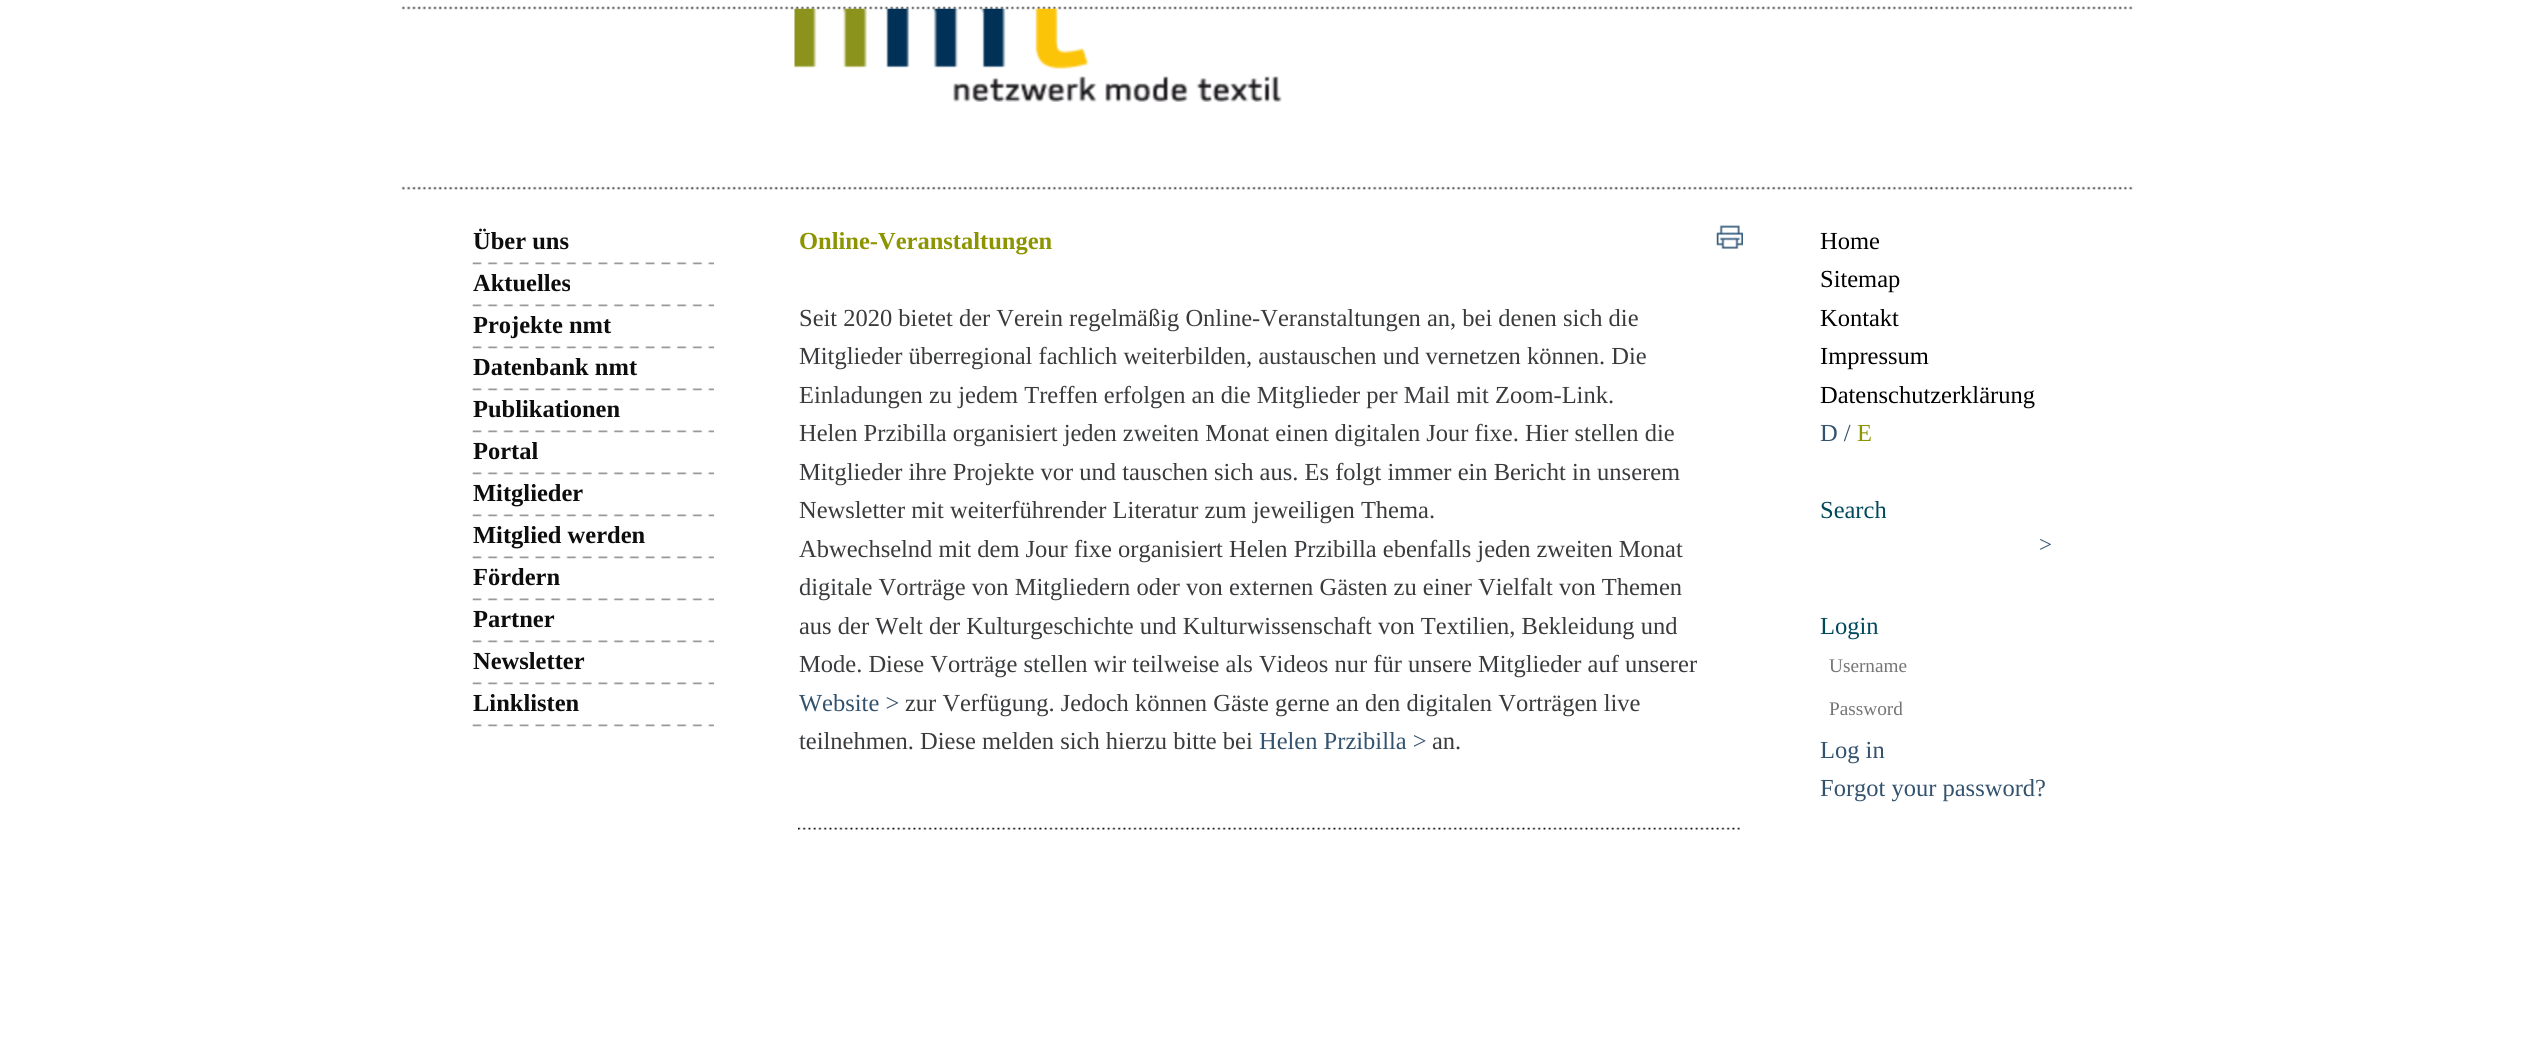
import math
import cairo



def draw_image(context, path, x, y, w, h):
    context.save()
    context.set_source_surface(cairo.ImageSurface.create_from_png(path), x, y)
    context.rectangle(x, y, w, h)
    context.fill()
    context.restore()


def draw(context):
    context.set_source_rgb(1, 1, 1)
    context.paint()
    draw_image(context, "images/1.png", 401, 6, 1732, 184)
    draw_image(context, "images/2.png", 794, 8, 488, 94)
    draw_image(context, "images/3.png", 472, 262, 242, 3)
    draw_image(context, "images/4.png", 472, 304, 242, 3)
    draw_image(context, "images/4.png", 472, 346, 242, 3)
    draw_image(context, "images/3.png", 472, 388, 242, 3)
    draw_image(context, "images/3.png", 472, 430, 242, 3)
    draw_image(context, "images/4.png", 472, 472, 242, 3)
    draw_image(context, "images/3.png", 472, 514, 242, 3)
    draw_image(context, "images/3.png", 472, 556, 242, 3)
    draw_image(context, "images/4.png", 472, 598, 242, 3)
    draw_image(context, "images/4.png", 472, 640, 242, 3)
    draw_image(context, "images/4.png", 472, 682, 242, 3)
    draw_image(context, "images/3.png", 472, 724, 242, 3)
    draw_image(context, "images/5.png", 798, 827, 942, 3)
    draw_image(context, "images/6.png", 1716, 225, 27, 24)
    context.select_font_face("Liberation Serif", cairo.FontSlant.NORMAL, cairo.FontWeight.BOLD)
    context.set_font_size(24.5)
    context.set_source_rgb(13 / 255, 13 / 255, 13 / 255)
    context.move_to(473, 249)
    context.show_text("Über uns")
    context.move_to(473, 291)
    context.show_text("Aktuelles")
    context.move_to(473, 333)
    context.show_text("Projekte nmt")
    context.move_to(473, 375)
    context.show_text("Datenbank nmt")
    context.move_to(473, 417)
    context.show_text("Publikationen")
    context.move_to(473, 459)
    context.show_text("Portal")
    context.move_to(473, 501)
    context.show_text("Mitglieder")
    context.move_to(473, 543)
    context.show_text("Mitglied werden")
    context.move_to(473, 585)
    context.show_text("Fördern")
    context.move_to(473, 627)
    context.show_text("Partner")
    context.move_to(473, 669)
    context.show_text("Newsletter")
    context.move_to(473, 711)
    context.show_text("Linklisten")
    context.set_source_rgb(140 / 255, 148 / 255, 0)
    context.move_to(799, 249)
    context.show_text("Online-Veranstaltungen")
    context.select_font_face("Liberation Serif")
    context.set_source_rgb(58 / 255, 59 / 255, 61 / 255)
    context.move_to(799, 326)
    context.show_text("Seit 2020 bietet der Verein regelmäßig Online-Veranstaltungen an, bei denen sich die")
    context.move_to(799, 364)
    context.show_text("Mitglieder überregional fachlich weiterbilden, austauschen und vernetzen können. Die")
    context.move_to(799, 403)
    context.show_text("Einladungen zu jedem Treffen erfolgen an die Mitglieder per Mail mit Zoom-Link.")
    context.move_to(799, 441)
    context.show_text("Helen Przibilla organisiert jeden zweiten Monat einen digitalen Jour fixe. Hier stellen die")
    context.move_to(799, 480)
    context.show_text("Mitglieder ihre Projekte vor und tauschen sich aus. Es folgt immer ein Bericht in unserem")
    context.move_to(799, 518)
    context.show_text("Newsletter mit weiterführender Literatur zum jeweiligen Thema.")
    context.move_to(799, 557)
    context.show_text("Abwechselnd mit dem Jour fixe organisiert Helen Przibilla ebenfalls jeden zweiten Monat")
    context.move_to(799, 595)
    context.show_text("digitale Vorträge von Mitgliedern oder von externen Gästen zu einer Vielfalt von Themen")
    context.move_to(799, 634)
    context.show_text("aus der Welt der Kulturgeschichte und Kulturwissenschaft von Textilien, Bekleidung und")
    context.move_to(799, 672)
    context.show_text("Mode. Diese Vorträge stellen wir teilweise als Videos nur für unsere Mitglieder auf unserer")
    context.set_source_rgb(51 / 255, 82 / 255, 110 / 255)
    context.move_to(799, 711)
    context.show_text("Website >")
    context.set_source_rgb(58 / 255, 59 / 255, 61 / 255)
    context.move_to(905, 711)
    context.show_text("zur Verfügung. Jedoch können Gäste gerne an den digitalen Vorträgen live")
    context.move_to(799, 749)
    context.show_text("teilnehmen. Diese melden sich hierzu bitte bei")
    context.set_source_rgb(51 / 255, 82 / 255, 110 / 255)
    context.move_to(1259, 749)
    context.show_text("Helen Przibilla >")
    context.set_source_rgb(58 / 255, 59 / 255, 61 / 255)
    context.move_to(1432, 749)
    context.show_text("an.")
    context.set_source_rgb(0, 0, 0)
    context.move_to(1820, 249)
    context.show_text("Home")
    context.move_to(1820, 287)
    context.show_text("Sitemap")
    context.move_to(1820, 326)
    context.show_text("Kontakt")
    context.move_to(1820, 364)
    context.show_text("Impressum")
    context.move_to(1820, 403)
    context.show_text("Datenschutzerklärung")
    context.set_source_rgb(51 / 255, 82 / 255, 110 / 255)
    context.move_to(1820, 441)
    context.show_text("D /")
    context.set_source_rgb(140 / 255, 148 / 255, 0)
    context.move_to(1857, 441)
    context.show_text("E")
    context.set_source_rgb(0, 73 / 255, 91 / 255)
    context.move_to(1820, 518)
    context.show_text("Search")
    context.set_font_size(23)
    context.set_source_rgb(51 / 255, 82 / 255, 110 / 255)
    context.move_to(2039, 552)
    context.show_text(">")
    context.set_font_size(24.5)
    context.set_source_rgb(0, 73 / 255, 91 / 255)
    context.move_to(1820, 634)
    context.show_text("Login")
    context.set_font_size(19.25)
    context.set_source_rgb(117 / 255, 117 / 255, 117 / 255)
    context.move_to(1829, 672)
    context.show_text("Username")
    context.move_to(1829, 715)
    context.show_text("Password")
    context.set_font_size(24.5)
    context.set_source_rgb(51 / 255, 82 / 255, 110 / 255)
    context.move_to(1820, 758)
    context.show_text("Log in")
    context.move_to(1820, 796)
    context.show_text("Forgot your password?")


surface = cairo.ImageSurface(cairo.Format.RGB24, 2534, 1064)
context = cairo.Context(surface)
options = cairo.FontOptions()
options.set_hint_metrics(cairo.HintMetrics.OFF)
options.set_hint_style(cairo.HintStyle.NONE)
context.set_font_options(options)
context.set_miter_limit(4)
draw(context)
surface.write_to_png("out.png")
